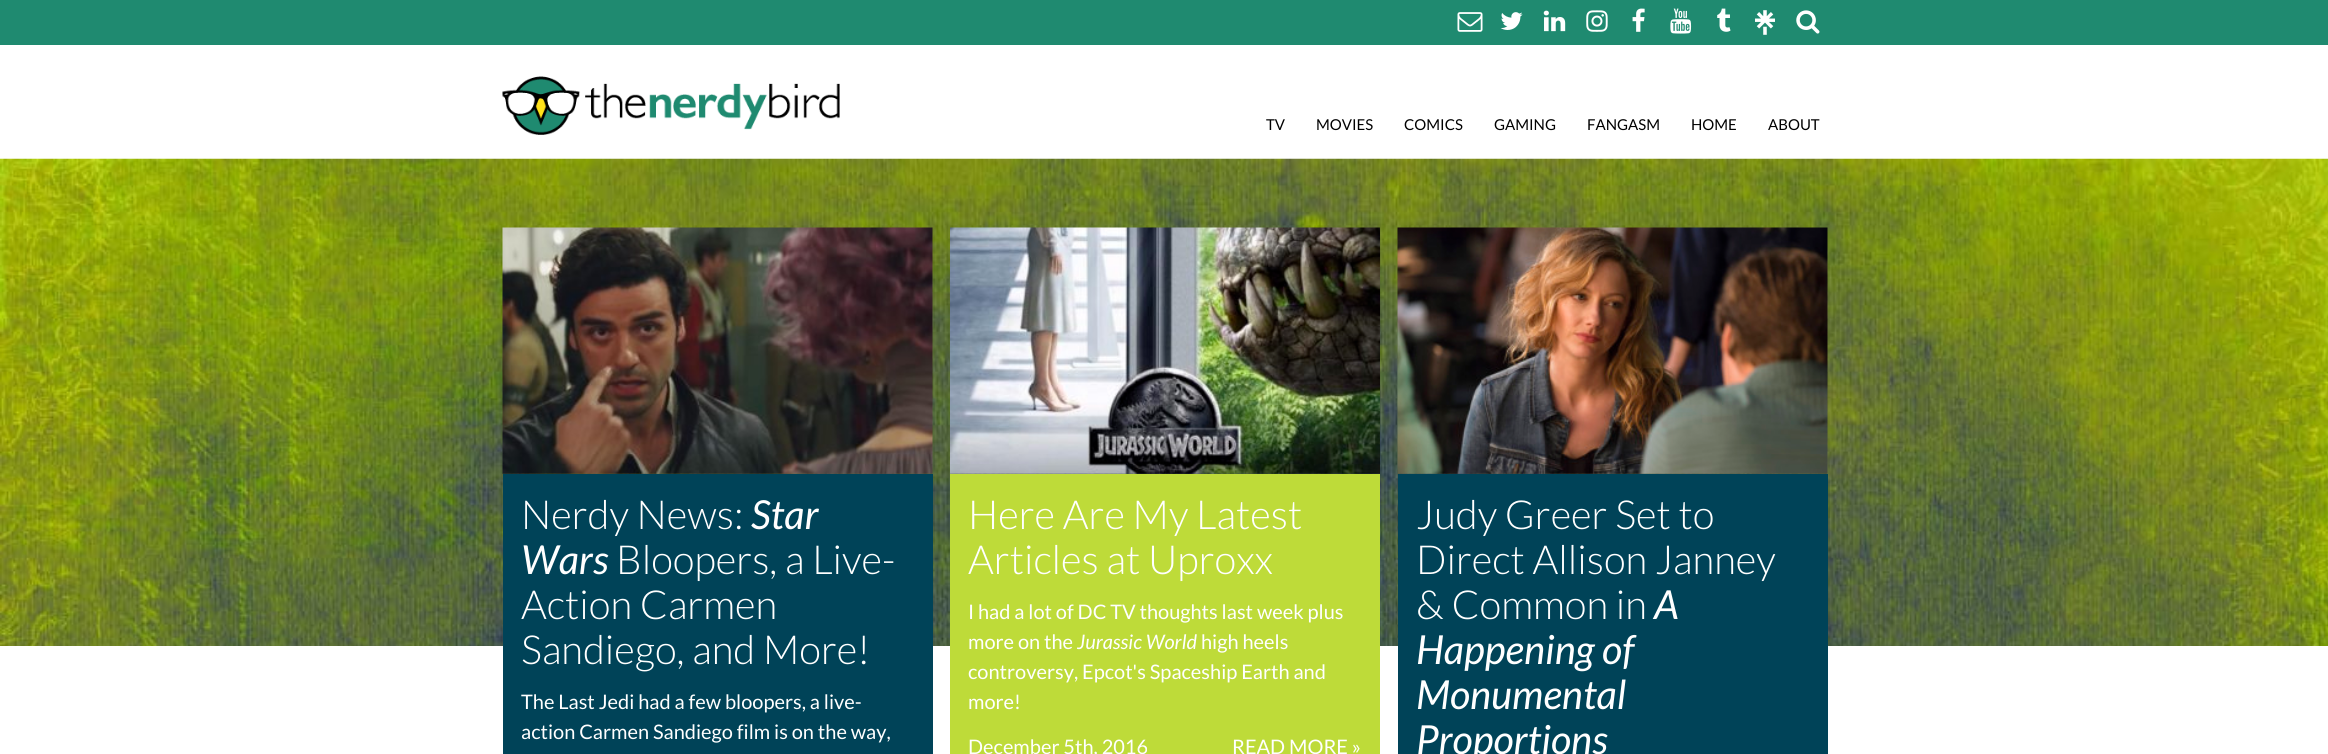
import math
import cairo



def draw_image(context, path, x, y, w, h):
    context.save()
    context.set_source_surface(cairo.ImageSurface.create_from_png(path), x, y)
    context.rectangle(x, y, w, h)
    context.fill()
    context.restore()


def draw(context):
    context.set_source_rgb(31 / 255, 138 / 255, 112 / 255)
    context.paint()
    draw_image(context, "images/1.png", 1457, 12, 26, 20)
    draw_image(context, "images/2.png", 1500, 12, 23, 18)
    draw_image(context, "images/3.png", 1543, 10, 23, 22)
    draw_image(context, "images/4.png", 1586, 10, 22, 22)
    draw_image(context, "images/5.png", 1632, 8, 13, 24)
    draw_image(context, "images/6.png", 1670, 8, 22, 26)
    draw_image(context, "images/7.png", 1717, 8, 14, 24)
    draw_image(context, "images/8.png", 1755, 10, 20, 25)
    draw_image(context, "images/9.png", 1796, 10, 24, 24)
    context.set_source_rgb(1, 1, 1)
    context.rectangle(0, 45, 2328, 114)
    context.fill()
    draw_image(context, "images/10.png", 502, 76, 338, 59)
    draw_image(context, "images/11.png", 0, 158, 2328, 488)
    context.rectangle(0, 646, 2328, 108)
    context.fill()
    draw_image(context, "images/12.png", 502, 227, 431, 247)
    context.set_source_rgb(0, 67 / 255, 88 / 255)
    context.rectangle(503, 474, 430, 280)
    context.fill()
    draw_image(context, "images/13.png", 950, 227, 430, 247)
    context.set_source_rgb(190 / 255, 219 / 255, 57 / 255)
    context.rectangle(950, 474, 430, 280)
    context.fill()
    draw_image(context, "images/14.png", 1397, 227, 431, 247)
    context.set_source_rgb(0, 67 / 255, 88 / 255)
    context.rectangle(1398, 474, 430, 280)
    context.fill()
    context.select_font_face("Lato")
    context.set_font_size(15)
    context.set_source_rgb(0, 0, 0)
    context.move_to(1266, 130)
    context.show_text("TV")
    context.move_to(1316, 130)
    context.show_text("MOVIES")
    context.move_to(1404, 130)
    context.show_text("COMICS")
    context.move_to(1494, 130)
    context.show_text("GAMING")
    context.move_to(1587, 130)
    context.show_text("FANGASM")
    context.move_to(1691, 130)
    context.show_text("HOME")
    context.move_to(1768, 130)
    context.show_text("ABOUT")
    context.select_font_face("Lato Light")
    context.set_font_size(40)
    context.set_source_rgb(1, 1, 1)
    context.move_to(521, 529)
    context.show_text("Nerdy News:")
    context.select_font_face("Lato", cairo.FontSlant.ITALIC)
    context.move_to(751, 529)
    context.show_text("Star")
    context.move_to(521, 574)
    context.show_text("Wars")
    context.select_font_face("Lato Light")
    context.move_to(616, 574)
    context.show_text("Bloopers, a Live-")
    context.move_to(521, 619)
    context.show_text("Action Carmen")
    context.move_to(521, 664)
    context.show_text("Sandiego, and More!")
    context.select_font_face("Lato")
    context.set_font_size(20)
    context.move_to(521, 709)
    context.show_text("The Last Jedi had a few bloopers, a live-")
    context.move_to(521, 739)
    context.show_text("action Carmen Sandiego film is on the way,")
    context.select_font_face("Lato Light")
    context.set_font_size(40)
    context.move_to(968, 529)
    context.show_text("Here Are My Latest")
    context.move_to(968, 574)
    context.show_text("Articles at Uproxx")
    context.select_font_face("Lato")
    context.set_font_size(20)
    context.move_to(968, 619)
    context.show_text("I had a lot of DC TV thoughts last week plus")
    context.move_to(968, 649)
    context.show_text("more on the")
    context.select_font_face("Lato", cairo.FontSlant.ITALIC)
    context.move_to(1077, 649)
    context.show_text("Jurassic World")
    context.select_font_face("Lato")
    context.move_to(1201, 649)
    context.show_text("high heels")
    context.move_to(968, 679)
    context.show_text("controversy, Epcot's Spaceship Earth and")
    context.move_to(968, 709)
    context.show_text("more!")
    context.move_to(1232, 754)
    context.show_text("READ MORE »")
    context.move_to(968, 754)
    context.show_text("December 5th, 2016")
    context.select_font_face("Lato Light")
    context.set_font_size(40)
    context.move_to(1416, 529)
    context.show_text("Judy Greer Set to")
    context.move_to(1416, 574)
    context.show_text("Direct Allison Janney")
    context.move_to(1416, 619)
    context.show_text("& Common in")
    context.select_font_face("Lato", cairo.FontSlant.ITALIC)
    context.move_to(1654, 619)
    context.show_text("A")
    context.move_to(1416, 664)
    context.show_text("Happening of")
    context.move_to(1416, 709)
    context.show_text("Monumental")
    context.move_to(1416, 754)
    context.show_text("Proportions")


surface = cairo.ImageSurface(cairo.Format.RGB24, 2328, 754)
context = cairo.Context(surface)
options = cairo.FontOptions()
options.set_hint_metrics(cairo.HintMetrics.OFF)
options.set_hint_style(cairo.HintStyle.NONE)
context.set_font_options(options)
context.set_miter_limit(4)
draw(context)
surface.write_to_png("out.png")
